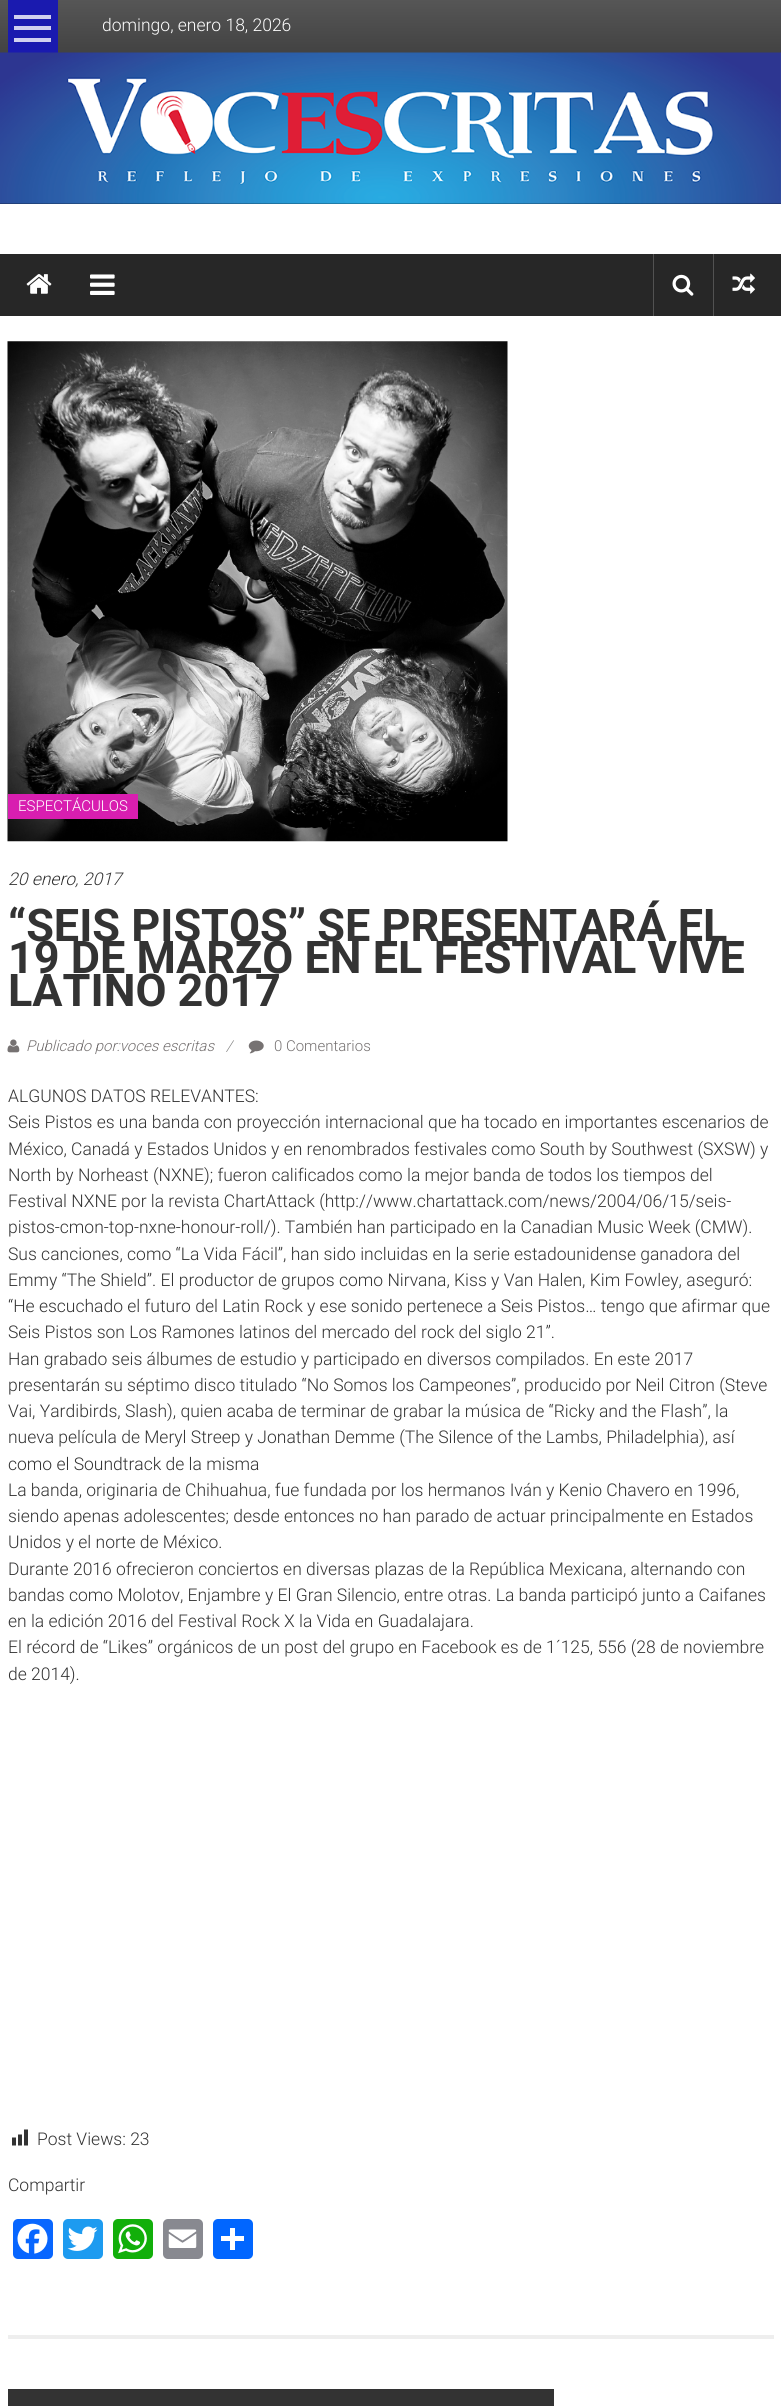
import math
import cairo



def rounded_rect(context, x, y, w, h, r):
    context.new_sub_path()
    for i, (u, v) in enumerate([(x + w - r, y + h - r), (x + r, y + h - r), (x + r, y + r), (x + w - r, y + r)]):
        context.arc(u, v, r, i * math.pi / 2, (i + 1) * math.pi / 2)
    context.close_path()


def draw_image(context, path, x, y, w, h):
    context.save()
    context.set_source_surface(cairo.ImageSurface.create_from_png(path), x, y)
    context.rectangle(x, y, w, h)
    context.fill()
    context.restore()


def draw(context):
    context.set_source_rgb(1, 1, 1)
    context.paint()
    gradient = cairo.LinearGradient(391, 0, 391, 204)
    gradient.add_color_stop_rgba(0, 86 / 255, 86 / 255, 86 / 255, 1)
    gradient.add_color_stop_rgba(1, 10 / 255, 10 / 255, 10 / 255, 1)
    context.set_source(gradient)
    context.rectangle(0, 0, 781, 204)
    context.fill()
    context.set_source_rgb(26 / 255, 26 / 255, 175 / 255)
    context.rectangle(8, 0, 50, 53)
    context.fill()
    context.set_source_rgb(209 / 255, 209 / 255, 239 / 255)
    context.rectangle(14, 15, 37, 4)
    context.fill()
    context.rectangle(14, 26, 37, 4)
    context.fill()
    context.rectangle(14, 38, 37, 4)
    context.fill()
    draw_image(context, "images/1.png", 0, 52, 781, 152)
    context.set_source_rgb(39 / 255, 39 / 255, 39 / 255)
    context.rectangle(0, 254, 781, 62)
    context.fill()
    draw_image(context, "images/2.png", 26, 274, 26, 20)
    draw_image(context, "images/3.png", 90, 274, 25, 21)
    context.set_source_rgb(82 / 255, 82 / 255, 82 / 255)
    context.rectangle(653, 254, 1, 62)
    context.fill()
    draw_image(context, "images/4.png", 672, 274, 22, 22)
    context.rectangle(713, 254, 1, 62)
    context.fill()
    draw_image(context, "images/5.png", 732, 273, 23, 21)
    context.set_source_rgb(238 / 255, 238 / 255, 238 / 255)
    context.rectangle(8, 2335, 766, 4)
    context.fill()
    draw_image(context, "images/6.png", 7, 341, 501, 501)
    context.set_source_rgb(216 / 255, 30 / 255, 176 / 255)
    context.rectangle(8, 794, 130, 25)
    context.fill()
    draw_image(context, "images/7.png", 7, 1039, 13, 14)
    draw_image(context, "images/8.png", 248, 1040, 16, 14)
    draw_image(context, "images/9.png", 12, 2129, 16, 17)
    context.set_source_rgb(8 / 255, 102 / 255, 1)
    rounded_rect(context, 13, 2219, 40, 40, 5)
    context.fill()
    draw_image(context, "images/10.png", 17, 2223, 31, 31)
    context.set_source_rgb(29 / 255, 155 / 255, 240 / 255)
    rounded_rect(context, 63, 2219, 40, 40, 5)
    context.fill()
    draw_image(context, "images/11.png", 67, 2226, 31, 25)
    context.set_source_rgb(18 / 255, 175 / 255, 10 / 255)
    rounded_rect(context, 113, 2219, 40, 40, 5)
    context.fill()
    draw_image(context, "images/12.png", 118, 2224, 29, 30)
    context.set_source_rgb(136 / 255, 137 / 255, 144 / 255)
    rounded_rect(context, 163, 2219, 40, 40, 5)
    context.fill()
    draw_image(context, "images/13.png", 168, 2229, 29, 19)
    context.set_source_rgb(1 / 255, 102 / 255, 1)
    rounded_rect(context, 213, 2219, 40, 40, 5)
    context.fill()
    context.set_source_rgb(1, 1, 1)
    context.rectangle(230, 2228, 5, 22)
    context.fill()
    context.rectangle(221, 2236, 23, 5)
    context.fill()
    context.set_source_rgb(51 / 255, 51 / 255, 51 / 255)
    context.rectangle(8, 2389, 546, 17)
    context.fill()
    context.select_font_face("Roboto Light")
    context.set_font_size(17.5)
    context.set_source_rgb(1, 1, 1)
    context.move_to(102, 31)
    context.show_text("domingo, enero 18, 2026")
    context.set_font_size(15)
    context.move_to(18, 811)
    context.show_text("ESPECTÁCULOS")
    context.select_font_face("Roboto Light", cairo.FontSlant.ITALIC)
    context.set_font_size(17.5)
    context.set_source_rgb(51 / 255, 51 / 255, 51 / 255)
    context.move_to(8, 885)
    context.show_text("20 enero, 2017")
    context.select_font_face("Roboto", cairo.FontSlant.NORMAL, cairo.FontWeight.BOLD)
    context.set_font_size(45)
    context.move_to(8, 941)
    context.show_text("“SEIS PISTOS” SE PRESENTARÁ EL")
    context.move_to(8, 973)
    context.show_text("19 DE MARZO EN EL FESTIVAL VIVE")
    context.move_to(8, 1006)
    context.show_text("LATINO 2017")
    context.select_font_face("Roboto Light", cairo.FontSlant.ITALIC)
    context.set_font_size(15)
    context.set_source_rgb(118 / 255, 114 / 255, 114 / 255)
    context.move_to(26, 1051)
    context.show_text("Publicado por:voces escritas")
    context.set_source_rgb(128 / 255, 128 / 255, 128 / 255)
    context.move_to(226, 1051)
    context.show_text("/")
    context.select_font_face("Roboto Light")
    context.set_source_rgb(118 / 255, 114 / 255, 114 / 255)
    context.move_to(274, 1051)
    context.show_text("0 Comentarios")
    context.set_font_size(17.5)
    context.set_source_rgb(51 / 255, 51 / 255, 51 / 255)
    context.move_to(8, 1102)
    context.show_text("ALGUNOS DATOS RELEVANTES:")
    context.move_to(8, 1128)
    context.show_text("Seis Pistos es una banda con proyección internacional que ha tocado en importantes escenarios de")
    context.move_to(8, 1155)
    context.show_text("México, Canadá y Estados Unidos y en renombrados festivales como South by Southwest (SXSW) y")
    context.move_to(8, 1181)
    context.show_text("North by Norheast (NXNE); fueron calificados como la mejor banda de todos los tiempos del")
    context.move_to(8, 1207)
    context.show_text("Festival NXNE por la revista ChartAttack (http://www.chartattack.com/news/2004/06/15/seis-")
    context.move_to(8, 1233)
    context.show_text("pistos-cmon-top-nxne-honour-roll/). También han participado en la Canadian Music Week (CMW).")
    context.move_to(8, 1260)
    context.show_text("Sus canciones, como “La Vida Fácil”, han sido incluidas en la serie estadounidense ganadora del")
    context.move_to(8, 1286)
    context.show_text("Emmy “The Shield”. El productor de grupos como Nirvana, Kiss y Van Halen, Kim Fowley, aseguró:")
    context.move_to(8, 1312)
    context.show_text("“He escuchado el futuro del Latin Rock y ese sonido pertenece a Seis Pistos… tengo que afirmar que")
    context.move_to(8, 1338)
    context.show_text("Seis Pistos son Los Ramones latinos del mercado del rock del siglo 21”.")
    context.move_to(8, 1365)
    context.show_text("Han grabado seis álbumes de estudio y participado en diversos compilados. En este 2017")
    context.move_to(8, 1391)
    context.show_text("presentarán su séptimo disco titulado “No Somos los Campeones”, producido por Neil Citron (Steve")
    context.move_to(8, 1417)
    context.show_text("Vai, Yardibirds, Slash), quien acaba de terminar de grabar la música de “Ricky and the Flash”, la")
    context.move_to(8, 1443)
    context.show_text("nueva película de Meryl Streep y Jonathan Demme (The Silence of the Lambs, Philadelphia), así")
    context.move_to(8, 1470)
    context.show_text("como el Soundtrack de la misma")
    context.move_to(8, 1496)
    context.show_text("La banda, originaria de Chihuahua, fue fundada por los hermanos Iván y Kenio Chavero en 1996,")
    context.move_to(8, 1522)
    context.show_text("siendo apenas adolescentes; desde entonces no han parado de actuar principalmente en Estados")
    context.move_to(8, 1548)
    context.show_text("Unidos y el norte de México.")
    context.move_to(8, 1575)
    context.show_text("Durante 2016 ofrecieron conciertos en diversas plazas de la República Mexicana, alternando con")
    context.move_to(8, 1601)
    context.show_text("bandas como Molotov, Enjambre y El Gran Silencio, entre otras. La banda participó junto a Caifanes")
    context.move_to(8, 1627)
    context.show_text("en la edición 2016 del Festival Rock X la Vida en Guadalajara.")
    context.move_to(8, 1653)
    context.show_text("El récord de “Likes” orgánicos de un post del grupo en Facebook es de 1´125, 556 (28 de noviembre")
    context.move_to(8, 1680)
    context.show_text("de 2014).")
    context.move_to(37, 2145)
    context.show_text("Post Views: 23")
    context.move_to(8, 2191)
    context.show_text("Compartir")


surface = cairo.ImageSurface(cairo.Format.RGB24, 781, 2406)
context = cairo.Context(surface)
options = cairo.FontOptions()
options.set_hint_metrics(cairo.HintMetrics.OFF)
options.set_hint_style(cairo.HintStyle.NONE)
context.set_font_options(options)
context.set_miter_limit(4)
draw(context)
surface.write_to_png("out.png")
